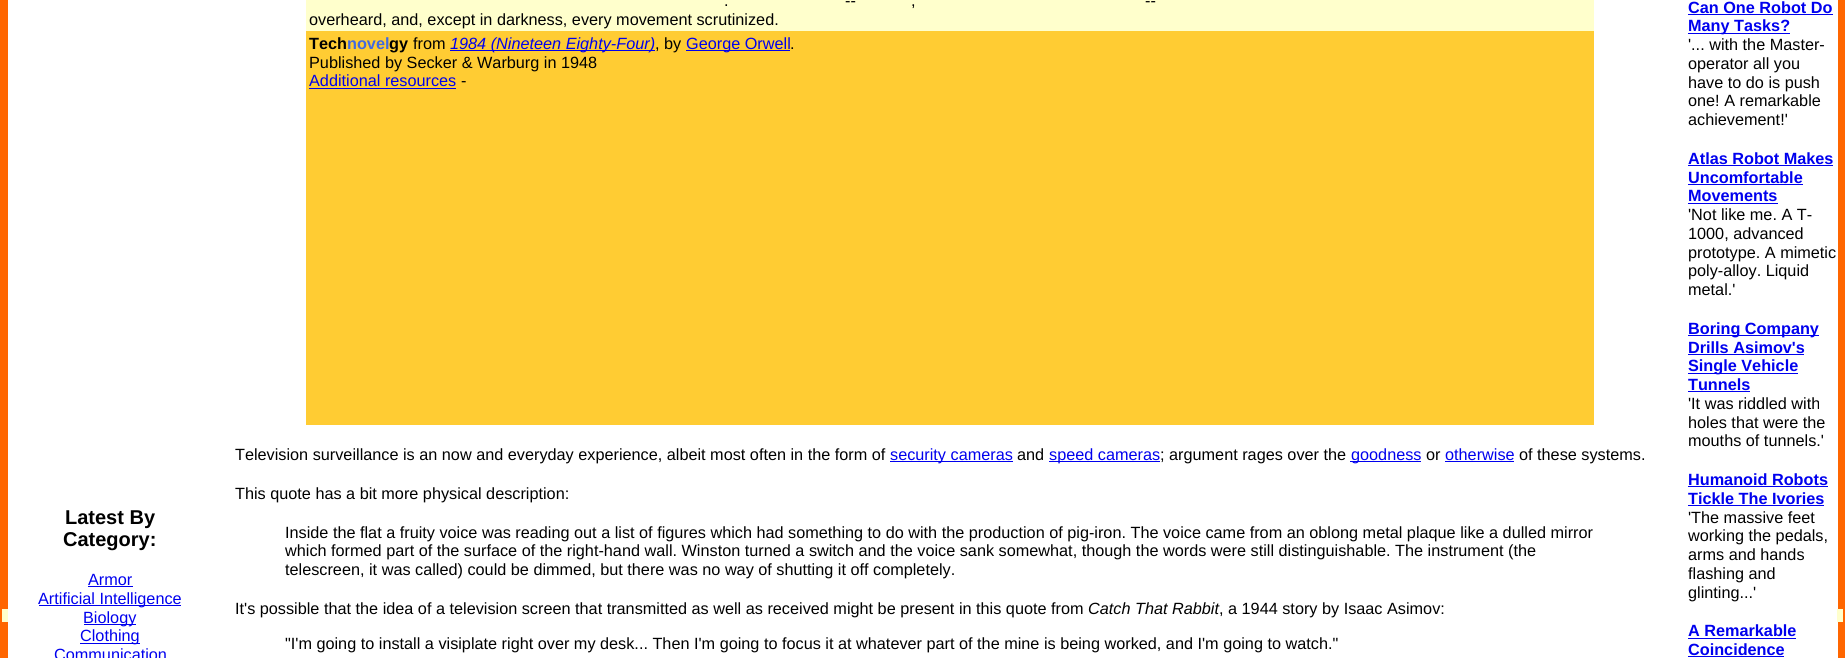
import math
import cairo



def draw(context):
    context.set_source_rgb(1, 1, 1)
    context.paint()
    context.set_source_rgb(1, 102 / 255, 0)
    context.rectangle(0, 0, 8, 658)
    context.fill()
    context.set_source_rgb(1, 1, 204 / 255)
    context.rectangle(2, 609, 6, 13)
    context.fill()
    context.set_source_rgb(0, 0, 238 / 255)
    context.rectangle(88, 586, 45, 1)
    context.fill()
    context.rectangle(39, 605, 142, 1)
    context.fill()
    context.rectangle(84, 624, 52, 1)
    context.fill()
    context.rectangle(80, 643, 60, 1)
    context.fill()
    context.set_source_rgb(1, 1, 204 / 255)
    context.rectangle(306, 0, 1288, 31)
    context.fill()
    context.set_source_rgb(1, 204 / 255, 51 / 255)
    context.rectangle(306, 31, 1288, 394)
    context.fill()
    context.set_source_rgb(0, 0, 238 / 255)
    context.rectangle(450, 50, 205, 1)
    context.fill()
    context.rectangle(686, 50, 104, 1)
    context.fill()
    context.rectangle(309, 88, 147, 1)
    context.fill()
    context.rectangle(890, 461, 123, 1)
    context.fill()
    context.rectangle(1049, 461, 111, 1)
    context.fill()
    context.rectangle(1350, 461, 71, 1)
    context.fill()
    context.rectangle(1445, 461, 69, 1)
    context.fill()
    context.rectangle(1688, 14, 145, 1)
    context.fill()
    context.rectangle(1688, 33, 102, 1)
    context.fill()
    context.rectangle(1688, 165, 145, 1)
    context.fill()
    context.rectangle(1688, 184, 115, 1)
    context.fill()
    context.rectangle(1688, 203, 90, 1)
    context.fill()
    context.rectangle(1688, 335, 131, 1)
    context.fill()
    context.rectangle(1688, 354, 116, 1)
    context.fill()
    context.rectangle(1688, 373, 110, 1)
    context.fill()
    context.rectangle(1688, 391, 62, 1)
    context.fill()
    context.rectangle(1688, 486, 140, 1)
    context.fill()
    context.rectangle(1688, 505, 136, 1)
    context.fill()
    context.rectangle(1688, 638, 108, 1)
    context.fill()
    context.rectangle(1688, 656, 96, 1)
    context.fill()
    context.set_source_rgb(1, 102 / 255, 0)
    context.rectangle(1838, 0, 7, 658)
    context.fill()
    context.set_source_rgb(1, 1, 204 / 255)
    context.rectangle(1837, 609, 6, 13)
    context.fill()
    context.select_font_face("Liberation Sans", cairo.FontSlant.NORMAL, cairo.FontWeight.BOLD)
    context.set_font_size(20)
    context.set_source_rgb(0, 0, 0)
    context.move_to(65, 524)
    context.show_text("Latest By")
    context.move_to(63, 546)
    context.show_text("Category:")
    context.select_font_face("Liberation Sans")
    context.set_font_size(16.25)
    context.set_source_rgb(0, 0, 238 / 255)
    context.move_to(88, 585)
    context.show_text("Armor")
    context.move_to(38, 604)
    context.show_text("Artificial Intelligence")
    context.move_to(83, 623)
    context.show_text("Biology")
    context.move_to(80, 641)
    context.show_text("Clothing")
    context.move_to(54, 660)
    context.show_text("Communication")
    context.set_source_rgb(0, 0, 0)
    context.move_to(845, 6)
    context.show_text("--")
    context.move_to(1145, 6)
    context.show_text("--")
    context.move_to(724, 6)
    context.show_text(".")
    context.move_to(911, 6)
    context.show_text(",")
    context.move_to(309, 25)
    context.show_text("overheard, and, except in darkness, every movement scrutinized.")
    context.select_font_face("Liberation Sans", cairo.FontSlant.NORMAL, cairo.FontWeight.BOLD)
    context.move_to(309, 49)
    context.show_text("Tech")
    context.set_source_rgb(65 / 255, 105 / 255, 225 / 255)
    context.move_to(347, 49)
    context.show_text("novel")
    context.set_source_rgb(0, 0, 0)
    context.move_to(389, 49)
    context.show_text("gy")
    context.select_font_face("Liberation Sans")
    context.move_to(413, 49)
    context.show_text("from")
    context.select_font_face("Liberation Sans", cairo.FontSlant.ITALIC)
    context.set_source_rgb(0, 0, 238 / 255)
    context.move_to(450, 49)
    context.show_text("1984 (Nineteen Eighty-Four)")
    context.select_font_face("Liberation Sans")
    context.set_source_rgb(0, 0, 0)
    context.move_to(655, 49)
    context.show_text(", by")
    context.set_source_rgb(0, 0, 238 / 255)
    context.move_to(686, 49)
    context.show_text("George Orwell")
    context.set_source_rgb(0, 0, 0)
    context.move_to(790, 49)
    context.show_text(".")
    context.move_to(309, 68)
    context.show_text("Published by Secker & Warburg in 1948")
    context.set_source_rgb(0, 0, 238 / 255)
    context.move_to(309, 86)
    context.show_text("Additional resources")
    context.set_source_rgb(0, 0, 0)
    context.move_to(461, 86)
    context.show_text("-")
    context.move_to(235, 460)
    context.show_text("Television surveillance is an now and everyday experience, albeit most often in the form of")
    context.set_source_rgb(0, 0, 238 / 255)
    context.move_to(890, 460)
    context.show_text("security cameras")
    context.set_source_rgb(0, 0, 0)
    context.move_to(1017, 460)
    context.show_text("and")
    context.set_source_rgb(0, 0, 238 / 255)
    context.move_to(1049, 460)
    context.show_text("speed cameras")
    context.set_source_rgb(0, 0, 0)
    context.move_to(1160, 460)
    context.show_text("; argument rages over the")
    context.set_source_rgb(0, 0, 238 / 255)
    context.move_to(1351, 460)
    context.show_text("goodness")
    context.set_source_rgb(0, 0, 0)
    context.move_to(1426, 460)
    context.show_text("or")
    context.set_source_rgb(0, 0, 238 / 255)
    context.move_to(1445, 460)
    context.show_text("otherwise")
    context.set_source_rgb(0, 0, 0)
    context.move_to(1519, 460)
    context.show_text("of these systems.")
    context.move_to(235, 499)
    context.show_text("This quote has a bit more physical description:")
    context.move_to(285, 538)
    context.show_text("Inside the flat a fruity voice was reading out a list of figures which had something to do with the production of pig-iron. The voice came from an oblong metal plaque like a dulled mirror")
    context.move_to(285, 556)
    context.show_text("which formed part of the surface of the right-hand wall. Winston turned a switch and the voice sank somewhat, though the words were still distinguishable. The instrument (the")
    context.move_to(285, 575)
    context.show_text("telescreen, it was called) could be dimmed, but there was no way of shutting it off completely.")
    context.move_to(235, 614)
    context.show_text("It's possible that the idea of a television screen that transmitted as well as received might be present in this quote from")
    context.select_font_face("Liberation Sans", cairo.FontSlant.ITALIC)
    context.move_to(1088, 614)
    context.show_text("Catch That Rabbit")
    context.select_font_face("Liberation Sans")
    context.move_to(1219, 614)
    context.show_text(", a 1944 story by Isaac Asimov:")
    context.move_to(285, 649)
    context.show_text("\"I'm going to install a visiplate right over my desk... Then I'm going to focus it at whatever part of the mine is being worked, and I'm going to watch.\"")
    context.select_font_face("Liberation Sans", cairo.FontSlant.NORMAL, cairo.FontWeight.BOLD)
    context.set_source_rgb(0, 0, 238 / 255)
    context.move_to(1688, 13)
    context.show_text("Can One Robot Do")
    context.move_to(1688, 31)
    context.show_text("Many Tasks?")
    context.select_font_face("Liberation Sans")
    context.set_source_rgb(0, 0, 0)
    context.move_to(1688, 50)
    context.show_text("'... with the Master-")
    context.move_to(1688, 69)
    context.show_text("operator all you")
    context.move_to(1688, 88)
    context.show_text("have to do is push")
    context.move_to(1688, 106)
    context.show_text("one! A remarkable")
    context.move_to(1688, 125)
    context.show_text("achievement!'")
    context.select_font_face("Liberation Sans", cairo.FontSlant.NORMAL, cairo.FontWeight.BOLD)
    context.set_source_rgb(0, 0, 238 / 255)
    context.move_to(1688, 164)
    context.show_text("Atlas Robot Makes")
    context.move_to(1688, 183)
    context.show_text("Uncomfortable")
    context.move_to(1688, 201)
    context.show_text("Movements")
    context.select_font_face("Liberation Sans")
    context.set_source_rgb(0, 0, 0)
    context.move_to(1688, 220)
    context.show_text("'Not like me. A T-")
    context.move_to(1688, 239)
    context.show_text("1000, advanced")
    context.move_to(1688, 258)
    context.show_text("prototype. A mimetic")
    context.move_to(1688, 276)
    context.show_text("poly-alloy. Liquid")
    context.move_to(1688, 295)
    context.show_text("metal.'")
    context.select_font_face("Liberation Sans", cairo.FontSlant.NORMAL, cairo.FontWeight.BOLD)
    context.set_source_rgb(0, 0, 238 / 255)
    context.move_to(1688, 334)
    context.show_text("Boring Company")
    context.move_to(1688, 353)
    context.show_text("Drills Asimov's")
    context.move_to(1688, 371)
    context.show_text("Single Vehicle")
    context.move_to(1688, 390)
    context.show_text("Tunnels")
    context.select_font_face("Liberation Sans")
    context.set_source_rgb(0, 0, 0)
    context.move_to(1688, 409)
    context.show_text("'It was riddled with")
    context.move_to(1688, 428)
    context.show_text("holes that were the")
    context.move_to(1688, 446)
    context.show_text("mouths of tunnels.'")
    context.select_font_face("Liberation Sans", cairo.FontSlant.NORMAL, cairo.FontWeight.BOLD)
    context.set_source_rgb(0, 0, 238 / 255)
    context.move_to(1688, 485)
    context.show_text("Humanoid Robots")
    context.move_to(1688, 504)
    context.show_text("Tickle The Ivories")
    context.select_font_face("Liberation Sans")
    context.set_source_rgb(0, 0, 0)
    context.move_to(1688, 523)
    context.show_text("'The massive feet")
    context.move_to(1688, 541)
    context.show_text("working the pedals,")
    context.move_to(1688, 560)
    context.show_text("arms and hands")
    context.move_to(1688, 579)
    context.show_text("flashing and")
    context.move_to(1688, 598)
    context.show_text("glinting...'")
    context.select_font_face("Liberation Sans", cairo.FontSlant.NORMAL, cairo.FontWeight.BOLD)
    context.set_source_rgb(0, 0, 238 / 255)
    context.move_to(1688, 636)
    context.show_text("A Remarkable")
    context.move_to(1688, 655)
    context.show_text("Coincidence")


surface = cairo.ImageSurface(cairo.Format.RGB24, 1845, 658)
context = cairo.Context(surface)
options = cairo.FontOptions()
options.set_hint_metrics(cairo.HintMetrics.OFF)
options.set_hint_style(cairo.HintStyle.NONE)
context.set_font_options(options)
context.set_miter_limit(4)
draw(context)
surface.write_to_png("out.png")
